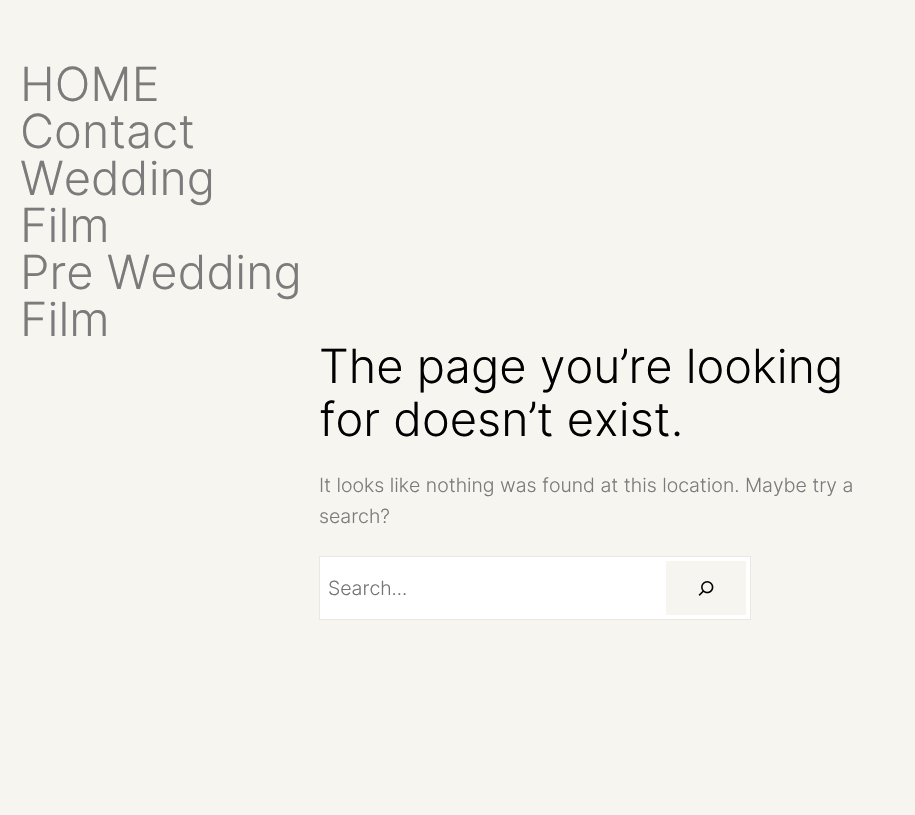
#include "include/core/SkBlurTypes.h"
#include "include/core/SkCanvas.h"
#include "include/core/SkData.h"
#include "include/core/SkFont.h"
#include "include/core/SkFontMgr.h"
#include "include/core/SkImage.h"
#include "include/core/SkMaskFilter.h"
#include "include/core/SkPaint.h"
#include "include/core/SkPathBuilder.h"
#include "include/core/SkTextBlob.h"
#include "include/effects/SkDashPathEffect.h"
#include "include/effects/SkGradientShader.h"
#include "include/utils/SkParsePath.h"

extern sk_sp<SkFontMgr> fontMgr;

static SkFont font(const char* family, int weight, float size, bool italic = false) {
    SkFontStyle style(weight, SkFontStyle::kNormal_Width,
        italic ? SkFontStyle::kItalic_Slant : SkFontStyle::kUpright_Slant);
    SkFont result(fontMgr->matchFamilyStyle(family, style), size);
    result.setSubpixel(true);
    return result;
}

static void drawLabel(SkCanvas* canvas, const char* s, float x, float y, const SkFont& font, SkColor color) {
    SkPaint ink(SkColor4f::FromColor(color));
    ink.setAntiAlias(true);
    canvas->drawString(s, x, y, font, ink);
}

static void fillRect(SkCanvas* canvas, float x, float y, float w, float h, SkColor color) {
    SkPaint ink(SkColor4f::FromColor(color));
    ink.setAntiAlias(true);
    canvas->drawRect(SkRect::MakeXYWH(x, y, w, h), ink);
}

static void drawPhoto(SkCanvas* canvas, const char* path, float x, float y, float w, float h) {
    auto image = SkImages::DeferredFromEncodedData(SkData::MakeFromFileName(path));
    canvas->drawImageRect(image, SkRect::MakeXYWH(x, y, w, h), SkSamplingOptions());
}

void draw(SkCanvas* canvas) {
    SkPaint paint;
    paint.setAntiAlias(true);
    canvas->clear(0xFFF6F5F0);
    SkFont font1 = font("Inter", 300, 47);
    drawLabel(canvas, "HOME", 20, 101, font1, 0xFF7B7B7B);
    drawLabel(canvas, "Contact", 20, 148, font1, 0xFF7B7B7B);
    drawLabel(canvas, "Wedding", 20, 195, font1, 0xFF7B7B7B);
    drawLabel(canvas, "Film", 20, 242, font1, 0xFF7B7B7B);
    drawLabel(canvas, "Pre Wedding", 20, 289, font1, 0xFF7B7B7B);
    drawLabel(canvas, "Film", 20, 336, font1, 0xFF7B7B7B);
    drawLabel(canvas, "The page you’re looking", 319, 383, font1, 0xFF000000);
    drawLabel(canvas, "for doesn’t exist.", 319, 436, font1, 0xFF000000);
    SkFont font2 = font("Inter", 300, 19.5f);
    drawLabel(canvas, "It looks like nothing was found at this location. Maybe try a", 319, 492, font2, 0xFF7B7B7B);
    drawLabel(canvas, "search?", 319, 523, font2, 0xFF7B7B7B);
    paint.setColor(0xFFFFFFFF);
    canvas->drawRect(SkRect::MakeXYWH(319.5f, 556.5f, 431, 63), paint);
    paint.setStroke(true);
    paint.setStrokeWidth(1);
    paint.setColor(0xFFEAE8E2);
    canvas->drawRect(SkRect::MakeXYWH(319.5f, 556.5f, 431, 63), paint);
    drawLabel(canvas, "Search...", 328, 595, font2, 0xFF757575);
    fillRect(canvas, 666, 561, 80, 54, 0xFFF6F5F0);
    drawPhoto(canvas, "assets/img1.png", 698, 581, 16, 15);
}
